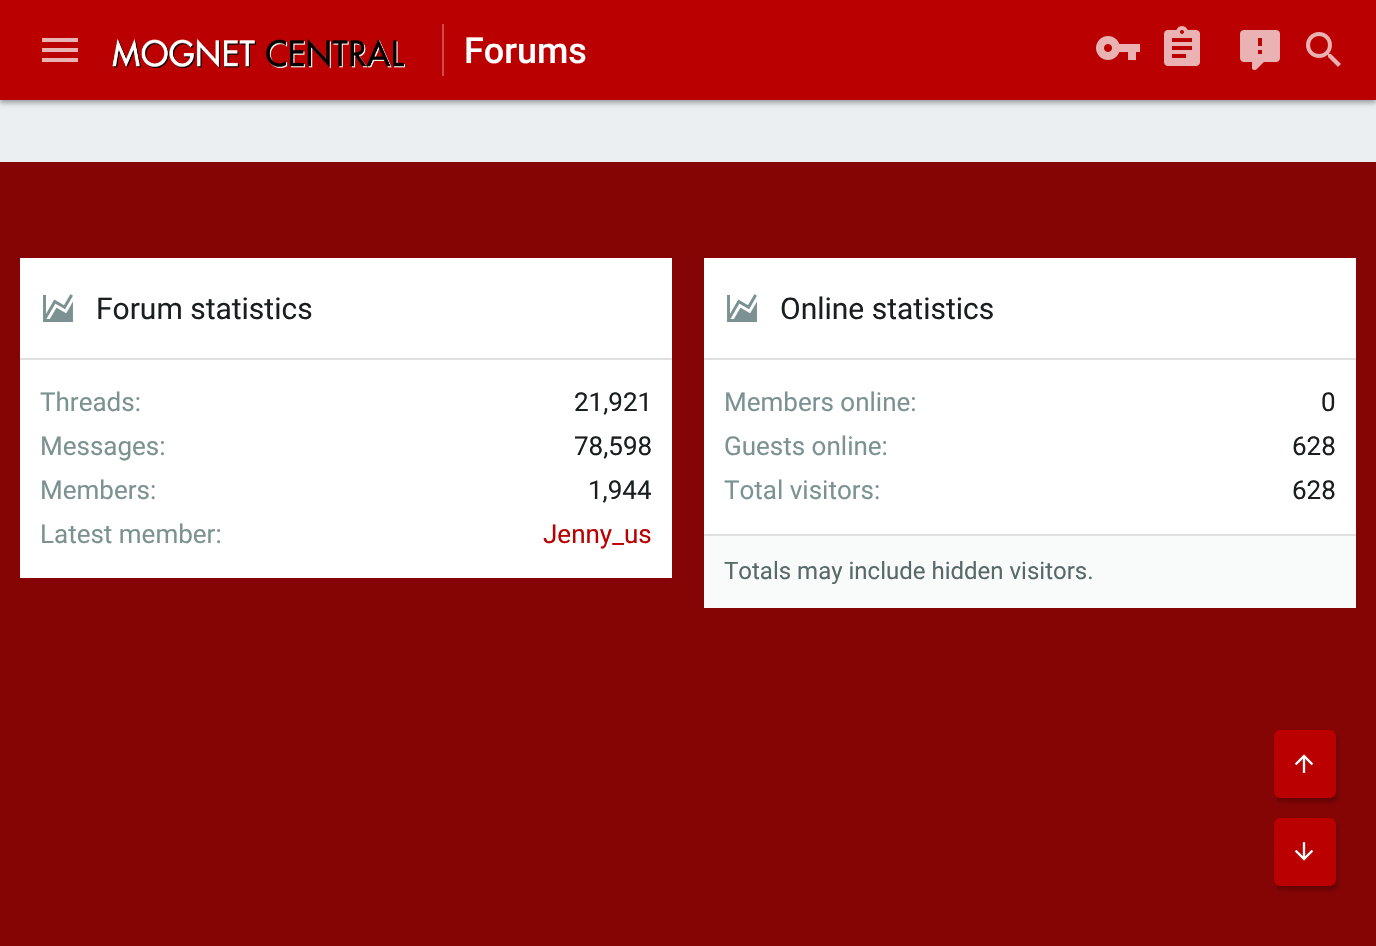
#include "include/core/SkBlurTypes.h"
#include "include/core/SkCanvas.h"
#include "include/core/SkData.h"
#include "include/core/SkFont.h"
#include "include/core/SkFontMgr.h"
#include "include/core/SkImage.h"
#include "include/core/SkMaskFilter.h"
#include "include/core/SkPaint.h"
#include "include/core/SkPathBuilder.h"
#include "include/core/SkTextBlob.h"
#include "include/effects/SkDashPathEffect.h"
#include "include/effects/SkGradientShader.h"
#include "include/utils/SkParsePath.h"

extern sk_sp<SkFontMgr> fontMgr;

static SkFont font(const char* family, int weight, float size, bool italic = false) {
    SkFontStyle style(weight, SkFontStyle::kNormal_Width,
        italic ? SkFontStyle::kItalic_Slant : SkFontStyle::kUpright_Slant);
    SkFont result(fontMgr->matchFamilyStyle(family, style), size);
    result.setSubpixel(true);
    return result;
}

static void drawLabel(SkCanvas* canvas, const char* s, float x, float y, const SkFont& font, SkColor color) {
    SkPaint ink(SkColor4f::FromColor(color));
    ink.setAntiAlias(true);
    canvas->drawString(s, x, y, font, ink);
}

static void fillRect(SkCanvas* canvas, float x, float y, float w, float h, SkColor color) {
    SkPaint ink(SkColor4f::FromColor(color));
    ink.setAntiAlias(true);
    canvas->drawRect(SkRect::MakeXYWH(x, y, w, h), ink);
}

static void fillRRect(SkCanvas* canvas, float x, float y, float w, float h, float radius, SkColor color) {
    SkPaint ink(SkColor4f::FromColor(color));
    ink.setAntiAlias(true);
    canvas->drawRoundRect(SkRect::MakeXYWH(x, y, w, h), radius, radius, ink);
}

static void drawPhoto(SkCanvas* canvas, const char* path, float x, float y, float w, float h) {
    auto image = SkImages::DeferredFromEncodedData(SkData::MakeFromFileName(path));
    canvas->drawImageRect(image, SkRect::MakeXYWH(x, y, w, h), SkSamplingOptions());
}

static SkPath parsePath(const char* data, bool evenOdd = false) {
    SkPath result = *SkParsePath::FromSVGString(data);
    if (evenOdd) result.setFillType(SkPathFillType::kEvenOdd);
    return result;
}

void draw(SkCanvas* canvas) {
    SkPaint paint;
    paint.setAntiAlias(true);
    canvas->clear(0xFFECEFF1);
    paint.setColor(0x33000000);
    paint.setMaskFilter(SkMaskFilter::MakeBlur(kNormal_SkBlurStyle, 3));
    canvas->drawRect(SkRect::MakeXYWH(0, 2, 1376, 100), paint);
    paint.setMaskFilter(nullptr);
    paint.setColor(0x1F000000);
    paint.setMaskFilter(SkMaskFilter::MakeBlur(kNormal_SkBlurStyle, 2));
    canvas->drawRect(SkRect::MakeXYWH(0, 4, 1376, 100), paint);
    paint.setMaskFilter(nullptr);
    paint.setColor(0x24000000);
    paint.setMaskFilter(SkMaskFilter::MakeBlur(kNormal_SkBlurStyle, 2));
    canvas->drawRect(SkRect::MakeXYWH(0, 0, 1376, 100), paint);
    paint.setMaskFilter(nullptr);
    fillRect(canvas, 0, 0, 1376, 100, 0xFFBA0000);
    paint.setColor(0xFFEAB3B3);
    canvas->drawPath(parsePath("M42 38H78V42H42ZM42 48H78V52H42ZM42 58H78V62H42Z"), paint);
    drawPhoto(canvas, "assets/img1.png", 112, 39, 293, 30);
    fillRect(canvas, 442, 24, 2, 52, 0xFFCF4D4D);
    SkFont font1 = font("Roboto", 500, 36);
    drawLabel(canvas, "Forums", 464, 63, font1, 0xFFFFFFFF);
    drawPhoto(canvas, "assets/img2.png", 1096, 36, 45, 24);
    drawPhoto(canvas, "assets/img3.png", 1164, 26, 36, 40);
    drawPhoto(canvas, "assets/img4.png", 1240, 30, 40, 40);
    drawPhoto(canvas, "assets/img5.png", 1306, 32, 35, 35);
    fillRect(canvas, 0, 162, 1376, 784, 0xFF850505);
    fillRect(canvas, 20, 258, 652, 320, 0xFFFFFFFF);
    fillRect(canvas, 20, 358, 652, 2, 0xFFE0E0E0);
    drawPhoto(canvas, "assets/img6.png", 43, 294, 30, 28);
    SkFont font2 = font("Roboto", 400, 30);
    drawLabel(canvas, "Forum statistics", 96, 319, font2, 0xFF191E1E);
    SkFont font3 = font("Roboto", 400, 26);
    drawLabel(canvas, "Threads:", 40, 411, font3, 0xFF7C9292);
    drawLabel(canvas, "21,921", 574, 411, font3, 0xFF191E1E);
    drawLabel(canvas, "Messages:", 40, 455, font3, 0xFF7C9292);
    drawLabel(canvas, "78,598", 574, 455, font3, 0xFF191E1E);
    drawLabel(canvas, "Members:", 40, 499, font3, 0xFF7C9292);
    drawLabel(canvas, "1,944", 588, 499, font3, 0xFF191E1E);
    drawLabel(canvas, "Latest member:", 40, 543, font3, 0xFF7C9292);
    drawLabel(canvas, "Jenny_us", 543, 543, font3, 0xFFBA0000);
    fillRect(canvas, 704, 258, 652, 276, 0xFFFFFFFF);
    fillRect(canvas, 704, 358, 652, 2, 0xFFE0E0E0);
    drawPhoto(canvas, "assets/img6.png", 727, 294, 30, 28);
    drawLabel(canvas, "Online statistics", 780, 319, font2, 0xFF191E1E);
    drawLabel(canvas, "Members online:", 724, 411, font3, 0xFF7C9292);
    drawLabel(canvas, "0", 1321, 411, font3, 0xFF191E1E);
    drawLabel(canvas, "Guests online:", 724, 455, font3, 0xFF7C9292);
    drawLabel(canvas, "628", 1292, 455, font3, 0xFF191E1E);
    drawLabel(canvas, "Total visitors:", 724, 499, font3, 0xFF7C9292);
    drawLabel(canvas, "628", 1292, 499, font3, 0xFF191E1E);
    fillRect(canvas, 704, 536, 652, 72, 0xFFF9FAFA);
    fillRect(canvas, 704, 534, 652, 2, 0xFFE0E0E0);
    SkFont font4 = font("Roboto", 400, 24);
    drawLabel(canvas, "Totals may include hidden visitors.", 724, 579, font4, 0xFF586969);
    paint.setColor(0x40000000);
    paint.setMaskFilter(SkMaskFilter::MakeBlur(kNormal_SkBlurStyle, 2));
    canvas->drawRoundRect(SkRect::MakeXYWH(1276, 734, 62, 68), 6, 6, paint);
    paint.setMaskFilter(nullptr);
    fillRRect(canvas, 1274, 730, 62, 68, 6, 0xFFBA0000);
    drawPhoto(canvas, "assets/img7.png", 1294, 754, 20, 19);
    paint.setMaskFilter(SkMaskFilter::MakeBlur(kNormal_SkBlurStyle, 2));
    canvas->drawRoundRect(SkRect::MakeXYWH(1276, 822, 62, 68), 6, 6, paint);
    paint.setMaskFilter(nullptr);
    fillRRect(canvas, 1274, 818, 62, 68, 6, 0xFFBA0000);
    drawPhoto(canvas, "assets/img8.png", 1294, 842, 20, 19);
}
